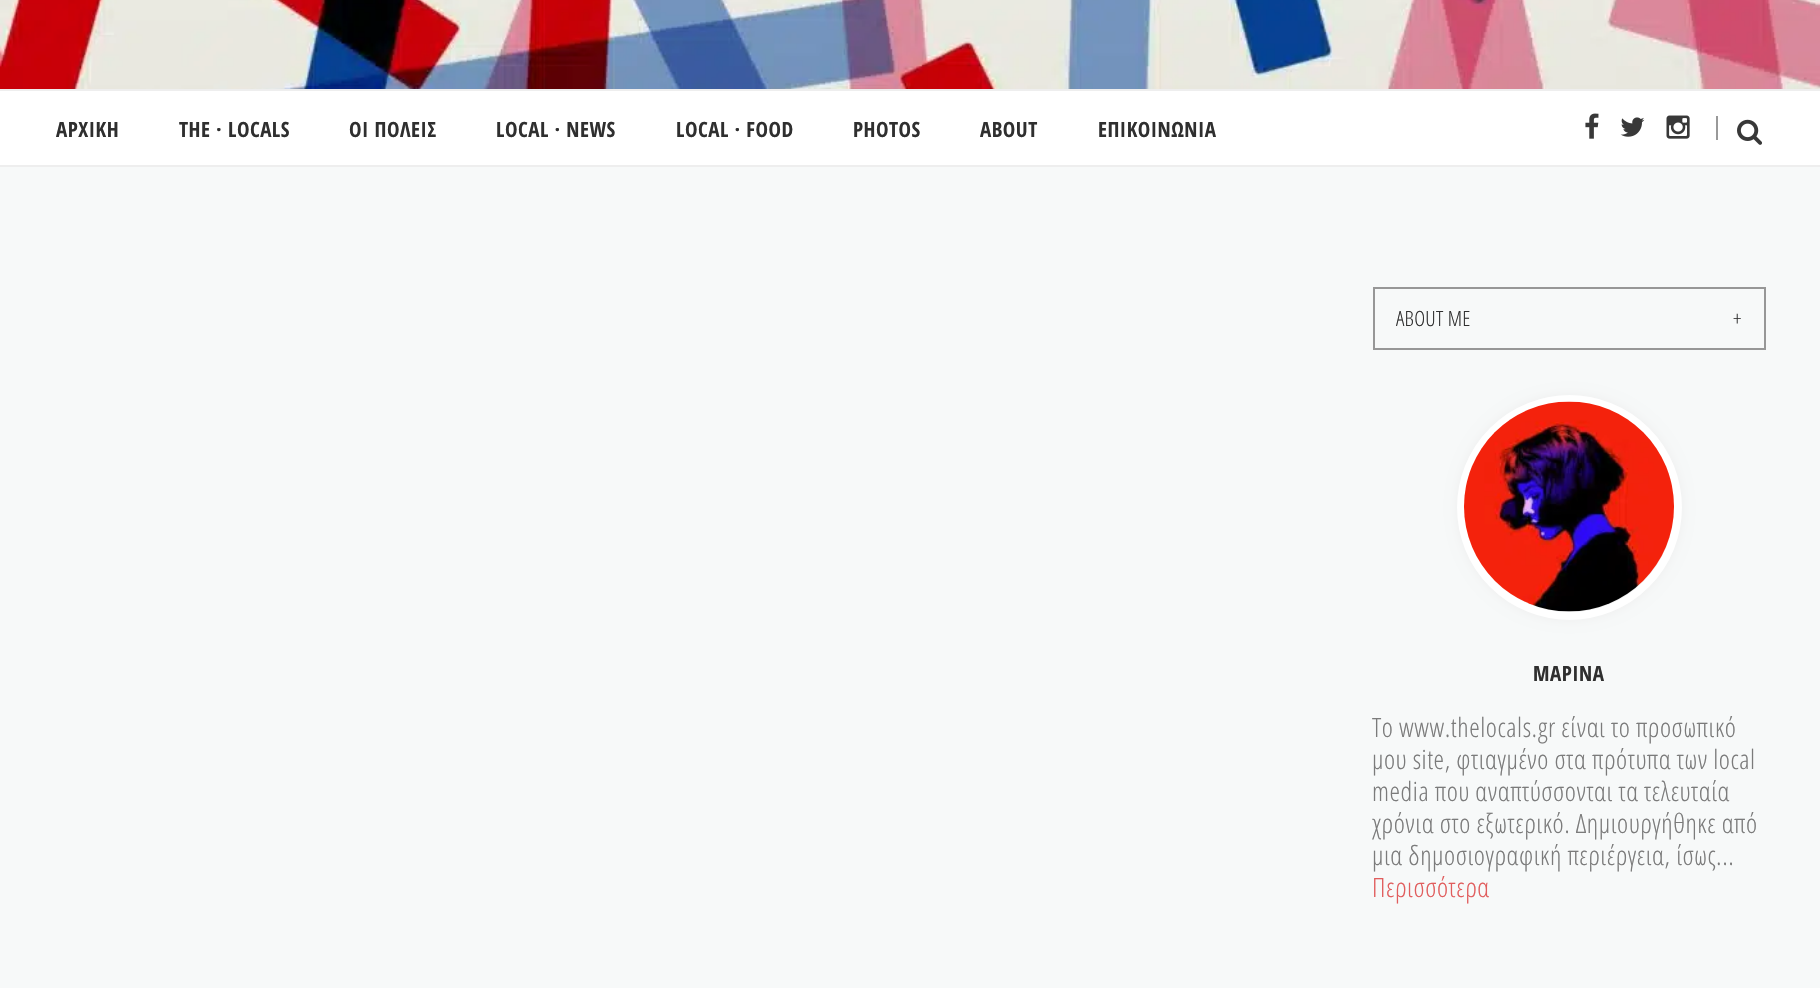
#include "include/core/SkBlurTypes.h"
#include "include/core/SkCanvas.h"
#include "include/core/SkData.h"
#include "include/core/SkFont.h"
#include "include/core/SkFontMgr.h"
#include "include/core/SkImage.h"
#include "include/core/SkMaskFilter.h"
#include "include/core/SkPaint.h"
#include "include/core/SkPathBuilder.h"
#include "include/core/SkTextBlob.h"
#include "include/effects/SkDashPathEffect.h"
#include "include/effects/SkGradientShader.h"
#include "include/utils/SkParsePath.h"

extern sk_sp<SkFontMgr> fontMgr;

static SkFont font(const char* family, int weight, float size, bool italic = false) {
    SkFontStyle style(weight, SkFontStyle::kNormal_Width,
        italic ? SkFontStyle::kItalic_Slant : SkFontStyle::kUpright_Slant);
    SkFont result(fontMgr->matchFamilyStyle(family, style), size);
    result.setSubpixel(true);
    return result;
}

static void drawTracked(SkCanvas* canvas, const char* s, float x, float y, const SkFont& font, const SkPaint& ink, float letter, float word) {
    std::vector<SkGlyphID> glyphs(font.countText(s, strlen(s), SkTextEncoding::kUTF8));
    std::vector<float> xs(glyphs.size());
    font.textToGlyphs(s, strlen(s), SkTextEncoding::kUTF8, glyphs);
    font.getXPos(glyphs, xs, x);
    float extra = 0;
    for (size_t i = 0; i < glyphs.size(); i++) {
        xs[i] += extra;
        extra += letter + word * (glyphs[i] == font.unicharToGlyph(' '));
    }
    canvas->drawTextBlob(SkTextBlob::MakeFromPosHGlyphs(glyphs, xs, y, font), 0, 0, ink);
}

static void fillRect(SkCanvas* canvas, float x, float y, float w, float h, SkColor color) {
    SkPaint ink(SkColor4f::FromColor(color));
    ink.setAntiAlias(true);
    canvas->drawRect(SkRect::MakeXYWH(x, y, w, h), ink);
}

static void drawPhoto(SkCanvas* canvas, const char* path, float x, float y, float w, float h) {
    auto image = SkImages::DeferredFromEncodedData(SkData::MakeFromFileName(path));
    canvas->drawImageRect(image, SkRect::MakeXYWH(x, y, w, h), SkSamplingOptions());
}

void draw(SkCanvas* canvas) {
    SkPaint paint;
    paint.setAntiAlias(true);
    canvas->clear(0xFFF7F9F9);
    drawPhoto(canvas, "assets/img1.png", 0, 0, 1820, 89);
    fillRect(canvas, 0, 91, 1820, 74, 0xFFFFFFFF);
    fillRect(canvas, 0, 89, 1820, 2, 0xFFEEEEEE);
    fillRect(canvas, 0, 165, 1820, 2, 0xFFEEEEEE);
    SkFont font1 = font("Open Sans Condensed", 700, 21);
    paint.setColor(0xFF2F2F2F);
    drawTracked(canvas, "ΑΡΧΙΚΗ", 56, 137, font1, paint, 0.5f, 0);
    drawTracked(canvas, "THE · LOCALS", 179, 137, font1, paint, 0.5f, 0);
    drawTracked(canvas, "ΟΙ ΠΟΛΕΙΣ", 349, 137, font1, paint, 0.5f, 0);
    drawTracked(canvas, "LOCAL · NEWS", 496, 137, font1, paint, 0.5f, 0);
    drawTracked(canvas, "LOCAL · FOOD", 676, 137, font1, paint, 0.5f, 0);
    drawTracked(canvas, "PHOTOS", 853, 137, font1, paint, 0.5f, 0);
    drawTracked(canvas, "ABOUT", 980, 137, font1, paint, 0.5f, 0);
    drawTracked(canvas, "ΕΠΙΚΟΙΝΩΝΙΑ", 1098, 137, font1, paint, 0.5f, 0);
    drawPhoto(canvas, "assets/img2.png", 1585, 113, 14, 26);
    drawPhoto(canvas, "assets/img3.png", 1620, 117, 25, 20);
    drawPhoto(canvas, "assets/img4.png", 1666, 115, 24, 24);
    fillRect(canvas, 1716, 116, 2, 24, 0xFF999999);
    drawPhoto(canvas, "assets/img5.png", 1737, 119, 25, 26);
    paint.setStroke(true);
    paint.setStrokeWidth(2);
    paint.setColor(0xFF979797);
    canvas->drawRect(SkRect::MakeXYWH(1374, 288, 391, 61), paint);
    SkFont font2 = font("Open Sans Condensed", 300, 21);
    paint.setStroke(false);
    paint.setColor(0xFF2F2F2F);
    drawTracked(canvas, "ABOUT ME", 1396, 326, font2, paint, 0.25f, 0);
    drawTracked(canvas, "+", 1733, 326, font2, paint, 0.25f, 0);
    paint.setColor(0xFFEEEEEE);
    paint.setMaskFilter(SkMaskFilter::MakeBlur(kNormal_SkBlurStyle, 6));
    canvas->drawRoundRect(SkRect::MakeXYWH(1457, 395, 225, 225), 112.5f, 112.5f, paint);
    paint.setMaskFilter(nullptr);
    paint.setStroke(true);
    paint.setStrokeWidth(8);
    paint.setColor(0xFFFFFFFF);
    canvas->drawCircle(1569.5f, 507.5f, 108.5f, paint);
    drawPhoto(canvas, "assets/img6.png", 1464, 401, 210, 211);
    paint.setStroke(false);
    paint.setColor(0xFF2F2F2F);
    drawTracked(canvas, "ΜΑΡΙΝΑ", 1533, 681, font1, paint, 0.5f, 0);
    SkFont font3 = font("Open Sans Condensed", 300, 26.75f);
    paint.setColor(0xFF7B7B7B);
    drawTracked(canvas, "Το www.thelocals.gr είναι το προσωπικό", 1372, 737, font3, paint, 0.55f, 0);
    drawTracked(canvas, "μου site, φτιαγμένο στα πρότυπα των local", 1372, 769, font3, paint, 0.55f, 0);
    drawTracked(canvas, "media που αναπτύσσονται τα τελευταία", 1372, 801, font3, paint, 0.55f, 0);
    drawTracked(canvas, "χρόνια στο εξωτερικό. Δημιουργήθηκε από", 1372, 833, font3, paint, 0.55f, 0);
    drawTracked(canvas, "μια δημοσιογραφική περιέργεια, ίσως...", 1372, 865, font3, paint, 0.55f, 0);
    paint.setColor(0xFFE15D5D);
    drawTracked(canvas, "Περισσότερα", 1372, 897, font3, paint, 0.55f, 0);
}
